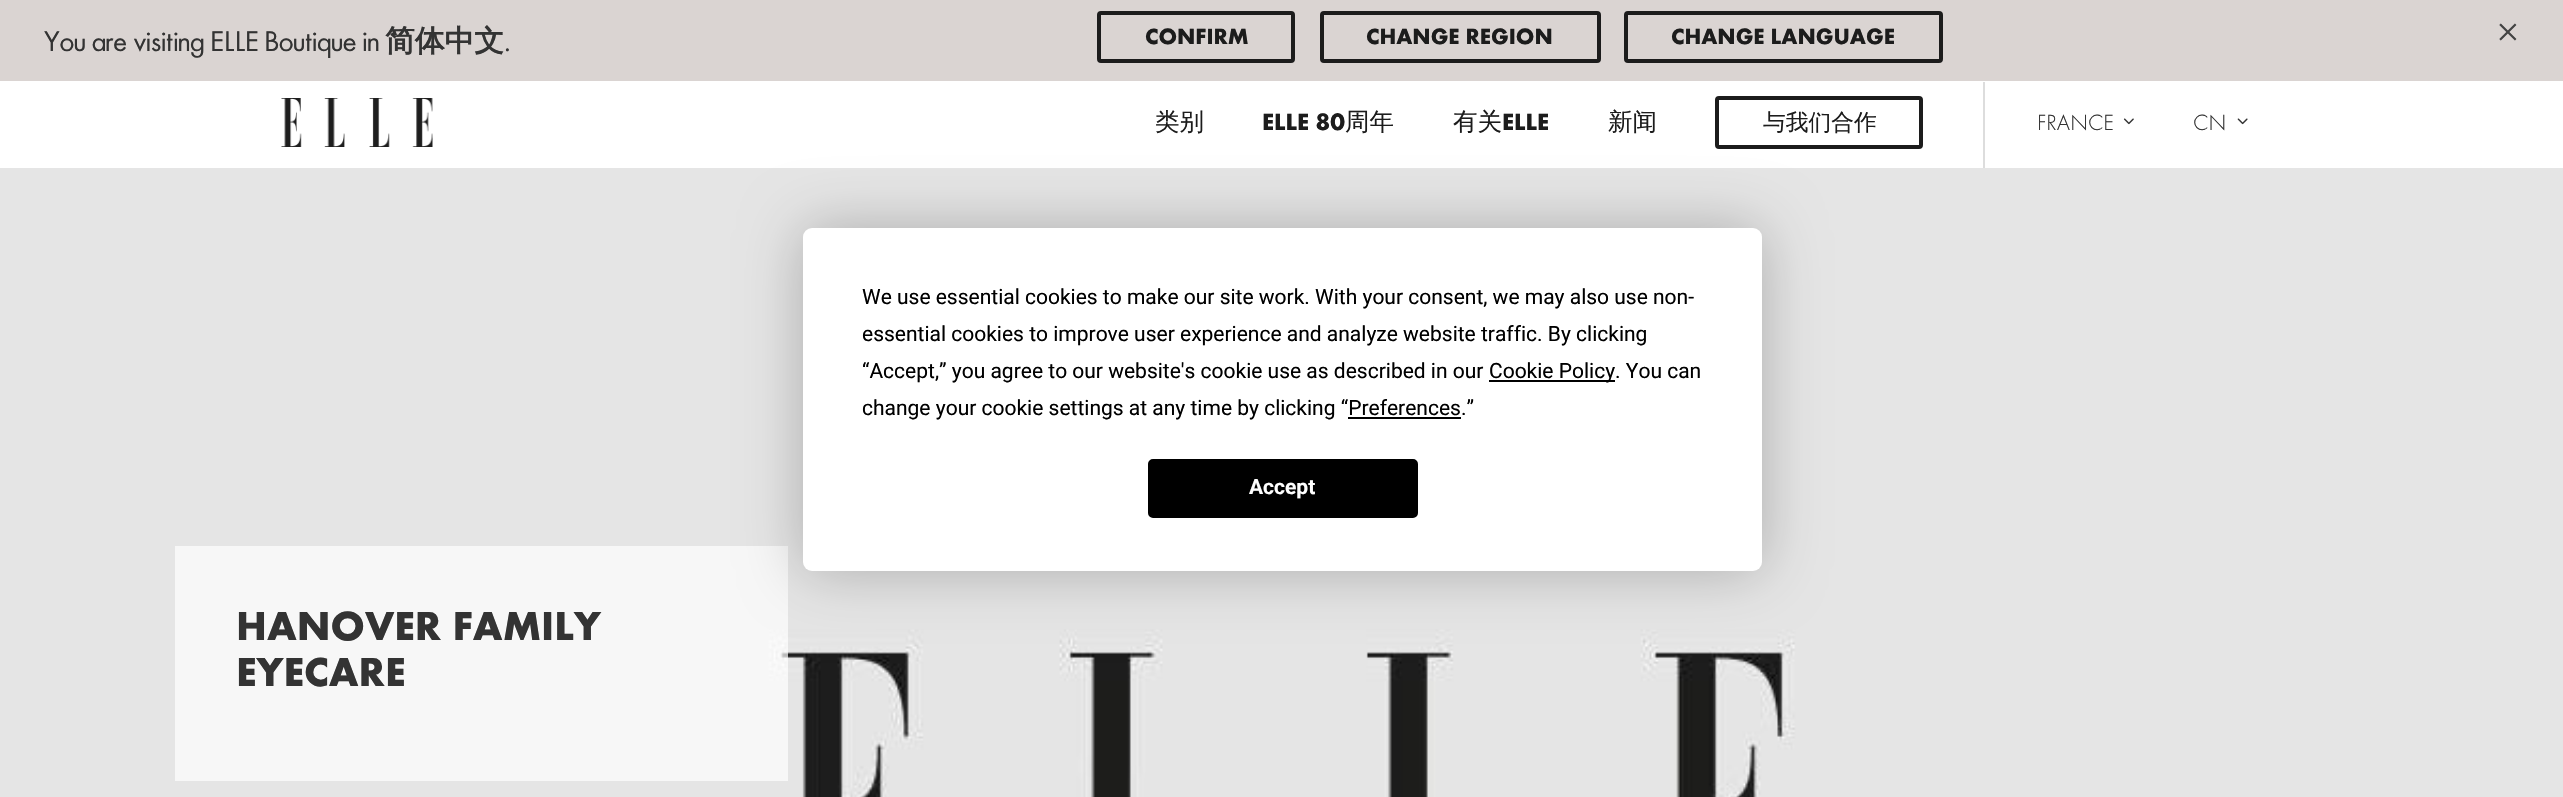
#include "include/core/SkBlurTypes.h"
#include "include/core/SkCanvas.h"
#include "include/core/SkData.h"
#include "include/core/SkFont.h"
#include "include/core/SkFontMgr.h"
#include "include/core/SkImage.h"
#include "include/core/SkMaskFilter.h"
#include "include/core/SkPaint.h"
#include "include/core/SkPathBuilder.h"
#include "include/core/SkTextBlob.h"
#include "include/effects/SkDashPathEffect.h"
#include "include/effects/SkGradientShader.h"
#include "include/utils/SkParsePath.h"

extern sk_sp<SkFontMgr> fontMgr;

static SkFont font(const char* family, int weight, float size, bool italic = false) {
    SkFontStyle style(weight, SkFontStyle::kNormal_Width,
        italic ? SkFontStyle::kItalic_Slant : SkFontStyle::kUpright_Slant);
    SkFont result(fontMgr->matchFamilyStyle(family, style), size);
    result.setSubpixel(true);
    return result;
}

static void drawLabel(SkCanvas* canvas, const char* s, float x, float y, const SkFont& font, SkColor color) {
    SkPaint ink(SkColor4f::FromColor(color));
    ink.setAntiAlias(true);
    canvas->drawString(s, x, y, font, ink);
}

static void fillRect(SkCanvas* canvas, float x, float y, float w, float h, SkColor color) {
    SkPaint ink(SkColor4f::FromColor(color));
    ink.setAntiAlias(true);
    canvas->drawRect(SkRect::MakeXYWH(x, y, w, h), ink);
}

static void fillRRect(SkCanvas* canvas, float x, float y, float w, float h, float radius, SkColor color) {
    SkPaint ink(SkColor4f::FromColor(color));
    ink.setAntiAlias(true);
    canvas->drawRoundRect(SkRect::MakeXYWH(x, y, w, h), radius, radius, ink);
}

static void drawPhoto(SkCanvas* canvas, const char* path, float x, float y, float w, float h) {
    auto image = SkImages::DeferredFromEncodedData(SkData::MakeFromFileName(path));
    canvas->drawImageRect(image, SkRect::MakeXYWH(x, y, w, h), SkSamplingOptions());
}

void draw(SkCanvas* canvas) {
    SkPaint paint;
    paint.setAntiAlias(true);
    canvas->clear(0xFFFFFFFF);
    fillRect(canvas, 0, 0, 2563, 81, 0xFFDAD4D2);
    SkFont font1 = font("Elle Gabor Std", 400, 29.75f);
    drawLabel(canvas, "You are visiting ELLE Boutique in", 44, 51, font1, 0xFF333333);
    SkFont font2 = font("WenQuanYi Zen Hei", 700, 29.75f);
    drawLabel(canvas, "简体中文", 385, 51, font2, 0xFF333333);
    drawLabel(canvas, ".", 504, 51, font1, 0xFF333333);
    paint.setStroke(true);
    paint.setStrokeWidth(4);
    paint.setColor(0xFF1C1C1C);
    canvas->drawRoundRect(SkRect::MakeXYWH(1099, 13, 194, 48), 2, 2, paint);
    SkFont font3 = font("Elle Gabor Std", 700, 22.75f);
    drawLabel(canvas, "CONFIRM", 1145, 44, font3, 0xFF1C1C1C);
    canvas->drawRoundRect(SkRect::MakeXYWH(1322, 13, 277, 48), 2, 2, paint);
    drawLabel(canvas, "CHANGE REGION", 1366, 44, font3, 0xFF1C1C1C);
    canvas->drawRoundRect(SkRect::MakeXYWH(1626, 13, 315, 48), 2, 2, paint);
    drawLabel(canvas, "CHANGE LANGUAGE", 1671, 44, font3, 0xFF1C1C1C);
    SkFont font4 = font("Liberation Serif", 400, 42);
    drawLabel(canvas, "×", 2496, 46, font4, 0xFF444444);
    drawPhoto(canvas, "assets/img1.png", 281, 98, 152, 49);
    SkFont font5 = font("WenQuanYi Zen Hei", 500, 24.5f);
    drawLabel(canvas, "类别", 1155, 130, font5, 0xFF1C1C1C);
    SkFont font6 = font("Elle Gabor Std", 700, 24.5f);
    drawLabel(canvas, "ELLE 80", 1262, 130, font6, 0xFF1C1C1C);
    drawLabel(canvas, "周年", 1345, 130, font5, 0xFF1C1C1C);
    drawLabel(canvas, "有关", 1453, 130, font5, 0xFF1C1C1C);
    drawLabel(canvas, "ELLE", 1502, 130, font6, 0xFF1C1C1C);
    drawLabel(canvas, "新闻", 1608, 130, font5, 0xFF1C1C1C);
    canvas->drawRoundRect(SkRect::MakeXYWH(1717, 98, 204, 49), 2, 2, paint);
    SkFont font7 = font("WenQuanYi Zen Hei", 500, 22.75f);
    drawLabel(canvas, "与我们合作", 1763, 130, font7, 0xFF1C1C1C);
    fillRect(canvas, 1983, 82, 2, 86, 0xFFDDDDDD);
    SkFont font8 = font("Elle Gabor Std", 300, 22.75f);
    drawLabel(canvas, "FRANCE", 2037, 130, font8, 0xFF333333);
    drawPhoto(canvas, "assets/img2.png", 2123, 118, 11, 7);
    drawLabel(canvas, "CN", 2193, 130, font8, 0xFF333333);
    drawPhoto(canvas, "assets/img3.png", 2237, 118, 11, 7);
    drawPhoto(canvas, "assets/img4.png", 0, 168, 2563, 629);
    fillRect(canvas, 175, 546, 613, 235, 0xB3FFFFFF);
    SkFont font9 = font("Elle Gabor Std", 700, 42);
    drawLabel(canvas, "HANOVER FAMILY", 236, 640, font9, 0xFF333333);
    drawLabel(canvas, "EYECARE", 236, 686, font9, 0xFF333333);
    paint.setStroke(false);
    paint.setColor(0x40000000);
    paint.setMaskFilter(SkMaskFilter::MakeBlur(kNormal_SkBlurStyle, 30.5f));
    canvas->drawRoundRect(SkRect::MakeXYWH(803, 228, 959, 343), 9, 9, paint);
    paint.setMaskFilter(nullptr);
    fillRRect(canvas, 803, 228, 959, 343, 9, 0xFFFFFFFF);
    SkFont font10 = font("Roboto", 400, 21);
    drawLabel(canvas, "We use essential cookies to make our site work. With your consent, we may also use non-", 862, 304, font10, 0xFF000000);
    drawLabel(canvas, "essential cookies to improve user experience and analyze website traffic. By clicking", 862, 341, font10, 0xFF000000);
    drawLabel(canvas, "“Accept,” you agree to our website's cookie use as described in our", 862, 378, font10, 0xFF000000);
    fillRect(canvas, 1489, 380, 126, 2, 0xFF000000);
    drawLabel(canvas, "Cookie Policy. You can", 1489, 378, font10, 0xFF000000);
    drawLabel(canvas, "change your cookie settings at any time by clicking “Preferences.”", 862, 415, font10, 0xFF000000);
    fillRect(canvas, 1348, 417, 113, 2, 0xFF000000);
    paint.setColor(0xFF000000);
    canvas->drawRoundRect(SkRect::MakeXYWH(1149, 460, 268, 57), 4, 4, paint);
    paint.setStroke(true);
    paint.setStrokeWidth(2);
    canvas->drawRoundRect(SkRect::MakeXYWH(1149, 460, 268, 57), 4, 4, paint);
    SkFont font11 = font("Roboto", 700, 21);
    drawLabel(canvas, "Accept", 1249, 494, font11, 0xFFFFFFFF);
}
